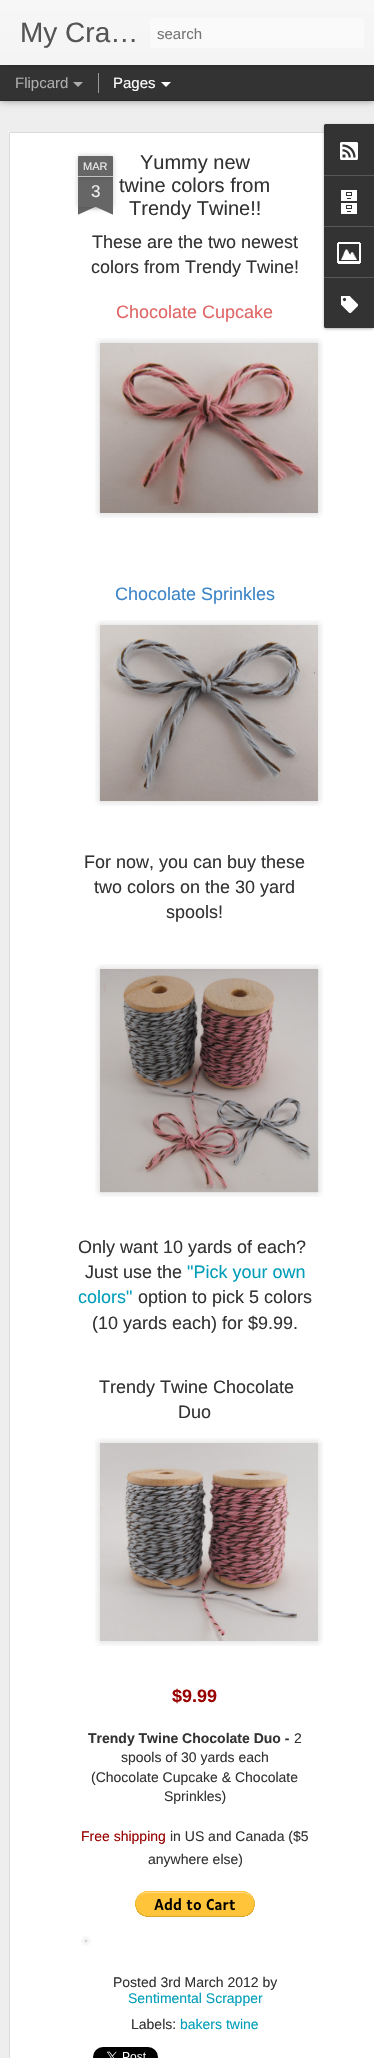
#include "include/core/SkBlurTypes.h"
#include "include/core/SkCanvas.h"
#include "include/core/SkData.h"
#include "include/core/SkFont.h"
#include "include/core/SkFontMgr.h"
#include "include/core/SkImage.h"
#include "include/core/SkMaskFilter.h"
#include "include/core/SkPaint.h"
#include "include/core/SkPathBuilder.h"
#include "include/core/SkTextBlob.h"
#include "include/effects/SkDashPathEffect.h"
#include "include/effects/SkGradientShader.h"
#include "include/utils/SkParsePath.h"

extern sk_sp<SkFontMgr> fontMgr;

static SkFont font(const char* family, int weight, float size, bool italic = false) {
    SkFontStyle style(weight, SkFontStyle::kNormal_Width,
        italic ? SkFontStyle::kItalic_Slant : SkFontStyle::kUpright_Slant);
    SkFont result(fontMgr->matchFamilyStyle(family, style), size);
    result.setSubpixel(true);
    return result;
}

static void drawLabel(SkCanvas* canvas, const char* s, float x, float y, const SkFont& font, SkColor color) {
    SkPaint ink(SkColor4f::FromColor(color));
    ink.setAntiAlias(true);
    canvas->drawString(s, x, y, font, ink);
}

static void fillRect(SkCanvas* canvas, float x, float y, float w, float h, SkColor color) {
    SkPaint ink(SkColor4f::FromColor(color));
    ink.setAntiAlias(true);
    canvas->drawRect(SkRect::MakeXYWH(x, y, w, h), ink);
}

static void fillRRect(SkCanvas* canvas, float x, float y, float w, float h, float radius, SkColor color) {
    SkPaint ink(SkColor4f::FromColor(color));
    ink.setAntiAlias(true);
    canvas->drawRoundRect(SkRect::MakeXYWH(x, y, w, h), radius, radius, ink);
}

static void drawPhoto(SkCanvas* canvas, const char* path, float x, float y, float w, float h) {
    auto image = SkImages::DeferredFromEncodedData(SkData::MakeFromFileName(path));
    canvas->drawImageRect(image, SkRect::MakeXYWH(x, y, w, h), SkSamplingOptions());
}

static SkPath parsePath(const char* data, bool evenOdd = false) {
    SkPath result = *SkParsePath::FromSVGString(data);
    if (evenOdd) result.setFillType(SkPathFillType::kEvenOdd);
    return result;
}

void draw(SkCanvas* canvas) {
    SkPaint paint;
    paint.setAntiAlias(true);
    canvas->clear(0xFF333333);
    fillRect(canvas, 0, 101, 374, 1957, 0xFFEEEEEE);
    paint.setColor(0x80000000);
    paint.setMaskFilter(SkMaskFilter::MakeBlur(kNormal_SkBlurStyle, 4));
    canvas->drawRect(SkRect::MakeXYWH(0, 65, 374, 35), paint);
    paint.setMaskFilter(nullptr);
    fillRect(canvas, 0, 65, 374, 35, 0xFF333333);
    fillRect(canvas, 98, 73, 1, 20, 0xFF999999);
    paint.setColor(0x4D000000);
    paint.setMaskFilter(SkMaskFilter::MakeBlur(kNormal_SkBlurStyle, 2.5f));
    canvas->drawRect(SkRect::MakeXYWH(0, 0, 374, 65), paint);
    paint.setMaskFilter(nullptr);
    {
        const SkColor colors[] = {0xFFF7F7F7, 0xFFF4F4F4};
        const float stops[] = {0, 1};
        const SkPoint ends[] = {{0, 0}, {0, 65}};
        paint.setShader(SkGradientShader::MakeLinear(ends, colors, stops, 2, SkTileMode::kClamp));
        paint.setAlpha(255);
    }
    canvas->drawRect(SkRect::MakeXYWH(0, 0, 374, 65), paint);
    SkFont font1 = font("Liberation Sans", 400, 28);
    drawLabel(canvas, "My Cra…", 20, 42, font1, 0xFF555555);
    fillRRect(canvas, 150, 18, 214, 30, 3, 0xFFFAFAFA);
    SkFont font2 = font("Liberation Sans", 400, 15);
    drawLabel(canvas, "search", 157, 39, font2, 0xFF757575);
    drawLabel(canvas, "Flipcard", 15, 88, font2, 0xFFADADAD);
    paint.setShader(nullptr);
    paint.setColor(0xFFADADAD);
    canvas->drawPath(parsePath("M73 82H83L78 87Z"), paint);
    drawLabel(canvas, "Pages", 113, 88, font2, 0xFFFFFFFF);
    paint.setColor(0xFFFFFFFF);
    canvas->drawPath(parsePath("M161 82H171L166 87Z"), paint);
    fillRect(canvas, 8, 131, 366, 1927, 0xFFFFFFFF);
    drawPhoto(canvas, "assets/img1.png", 8, 131, 316, 1927);
    paint.setColor(0x33000000);
    paint.setMaskFilter(SkMaskFilter::MakeBlur(kNormal_SkBlurStyle, 2.5f));
    canvas->drawRect(SkRect::MakeXYWH(78, 177, 35, 30), paint);
    paint.setMaskFilter(nullptr);
    fillRect(canvas, 78, 177, 35, 30, 0xFF666666);
    paint.setMaskFilter(SkMaskFilter::MakeBlur(kNormal_SkBlurStyle, 2.5f));
    canvas->drawRoundRect(SkRect::MakeXYWH(78, 156, 35, 21), 1, 1, paint);
    paint.setMaskFilter(nullptr);
    paint.setColor(0xFF666666);
    canvas->drawPath(parsePath("M79 156H112C112.5 156 113 156.5 113 157V177H78V157C78 156.5 78.5 156 79 156Z"), paint);
    fillRect(canvas, 78, 176, 35, 1, 0xFFC2C2C2);
    SkFont font3 = font("Liberation Sans", 400, 11);
    drawLabel(canvas, "MAR", 83, 170, font3, 0xFFEEEEEE);
    SkFont font4 = font("Liberation Sans", 400, 17);
    drawLabel(canvas, "3", 91, 197, font4, 0xFFEEEEEE);
    canvas->save();
    canvas->clipRect(SkRect::MakeXYWH(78, 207, 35, 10));
    paint.setColor(0x33000000);
    paint.setMaskFilter(SkMaskFilter::MakeBlur(kNormal_SkBlurStyle, 2.5f));
    canvas->drawRect(SkRect::MakeXYWH(69, 197, 50, 10), paint);
    paint.setMaskFilter(nullptr);
    canvas->restore();
    canvas->save();
    canvas->clipRect(SkRect::MakeXYWH(78, 207, 35, 10));
    paint.setColor(0xFF666666);
    canvas->drawPath(parsePath("M69 208L115 187L119 196L73 217Z"), paint);
    canvas->restore();
    canvas->save();
    canvas->clipRect(SkRect::MakeXYWH(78, 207, 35, 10));
    paint.setColor(0x33000000);
    paint.setMaskFilter(SkMaskFilter::MakeBlur(kNormal_SkBlurStyle, 2.5f));
    canvas->drawRect(SkRect::MakeXYWH(72, 197, 50, 10), paint);
    paint.setMaskFilter(nullptr);
    canvas->restore();
    canvas->save();
    canvas->clipRect(SkRect::MakeXYWH(78, 207, 35, 10));
    paint.setColor(0xFF666666);
    canvas->drawPath(parsePath("M76 187L122 208L118 217L72 196Z"), paint);
    canvas->restore();
    SkFont font5 = font("Liberation Sans", 400, 20);
    drawLabel(canvas, "Yummy new", 140, 169, font5, 0xFF333333);
    drawLabel(canvas, "twine colors from", 119, 192, font5, 0xFF333333);
    drawLabel(canvas, "Trendy Twine!!", 129, 215, font5, 0xFF333333);
    SkFont font6 = font("Liberation Sans", 400, 18);
    drawLabel(canvas, "These are the two newest", 92, 248, font6, 0xFF333333);
    drawLabel(canvas, "colors from Trendy Twine!", 91, 273, font6, 0xFF333333);
    drawLabel(canvas, "Chocolate Cupcake", 116, 318, font6, 0xFFE06666);
    drawPhoto(canvas, "assets/img2.png", 95, 338, 228, 180);
    drawPhoto(canvas, "assets/img3.png", 99, 363, 204, 150);
    drawLabel(canvas, "Chocolate Sprinkles", 115, 600, font6, 0xFF3D85C6);
    drawPhoto(canvas, "assets/img4.png", 95, 620, 228, 186);
    drawPhoto(canvas, "assets/img5.png", 99, 640, 216, 161);
    drawLabel(canvas, "For now, you can buy these", 84, 868, font6, 0xFF333333);
    drawLabel(canvas, "two colors on the 30 yard", 94, 893, font6, 0xFF333333);
    drawLabel(canvas, "spools!", 166, 918, font6, 0xFF333333);
    drawPhoto(canvas, "assets/img6.png", 95, 964, 228, 233);
    drawPhoto(canvas, "assets/img7.png", 100, 969, 219, 224);
    drawLabel(canvas, "Only want 10 yards of each?", 78, 1253, font6, 0xFF333333);
    drawLabel(canvas, "Just use the", 85, 1278, font6, 0xFF333333);
    drawLabel(canvas, "\"Pick your own", 187, 1278, font6, 0xFF009EB8);
    drawLabel(canvas, "colors\"", 78, 1303, font6, 0xFF009EB8);
    drawLabel(canvas, "option to pick 5 colors", 138, 1303, font6, 0xFF333333);
    drawLabel(canvas, "(10 yards each) for $9.99.", 92, 1329, font6, 0xFF333333);
    drawLabel(canvas, "Trendy Twine Chocolate", 99, 1393, font6, 0xFF333333);
    drawLabel(canvas, "Duo", 178, 1418, font6, 0xFF333333);
    drawPhoto(canvas, "assets/img8.png", 95, 1438, 228, 208);
    drawPhoto(canvas, "assets/img9.png", 126, 1470, 171, 166);
    SkFont font7 = font("Liberation Sans", 700, 18);
    drawLabel(canvas, "$9.99", 172, 1702, font7, 0xFF990000);
    SkFont font8 = font("Liberation Sans", 700, 14);
    drawLabel(canvas, "Trendy Twine Chocolate Duo -", 88, 1743, font8, 0xFF333333);
    SkFont font9 = font("Liberation Sans", 400, 14);
    drawLabel(canvas, "2", 294, 1743, font9, 0xFF333333);
    drawLabel(canvas, "spools of 30 yards each", 121, 1762, font9, 0xFF333333);
    drawLabel(canvas, "(Chocolate Cupcake & Chocolate", 91, 1782, font9, 0xFF333333);
    drawLabel(canvas, "Sprinkles)", 164, 1801, font9, 0xFF333333);
    drawLabel(canvas, "Free shipping", 81, 1841, font9, 0xFF990000);
    drawLabel(canvas, "in US and Canada ($5", 170, 1841, font9, 0xFF333333);
    drawLabel(canvas, "anywhere else)", 148, 1864, font9, 0xFF333333);
    drawPhoto(canvas, "assets/img10.png", 135, 1891, 120, 26);
    drawPhoto(canvas, "assets/img11.png", 81, 1936, 10, 10);
    drawLabel(canvas, "Posted 3rd March 2012 by", 113, 1987, font9, 0xFF333333);
    drawLabel(canvas, "Sentimental Scrapper", 128, 2003, font9, 0xFF009EB8);
    drawLabel(canvas, "Labels:", 131, 2029, font9, 0xFF333333);
    drawLabel(canvas, "bakers twine", 180, 2029, font9, 0xFF009EB8);
    drawPhoto(canvas, "assets/img12.png", 93, 2047, 65, 11);
    paint.setColor(0x4D000000);
    paint.setMaskFilter(SkMaskFilter::MakeBlur(kNormal_SkBlurStyle, 1.5f));
    canvas->drawRoundRect(SkRect::MakeXYWH(324, 125, 50, 204), 2, 2, paint);
    paint.setMaskFilter(nullptr);
    paint.setColor(0xFF333333);
    canvas->drawPath(parsePath("M326 124H374V328H326C325 328 324 327 324 326V126C324 125 325 124 326 124Z"), paint);
    canvas->drawPath(parsePath("M326 124H374V175H324V126C324 125 325 124 326 124Z"), paint);
    drawPhoto(canvas, "assets/img13.png", 340, 142, 18, 18);
    fillRect(canvas, 324, 175, 50, 1, 0xFF585858);
    drawPhoto(canvas, "assets/img14.png", 341, 190, 16, 24);
    fillRect(canvas, 324, 226, 50, 1, 0xFF585858);
    drawPhoto(canvas, "assets/img15.png", 337, 242, 24, 22);
    canvas->drawPath(parsePath("M324 277H374V328H326C325 328 324 327 324 326Z"), paint);
    fillRect(canvas, 324, 277, 50, 1, 0xFF585858);
    drawPhoto(canvas, "assets/img16.png", 341, 296, 17, 17);
}
